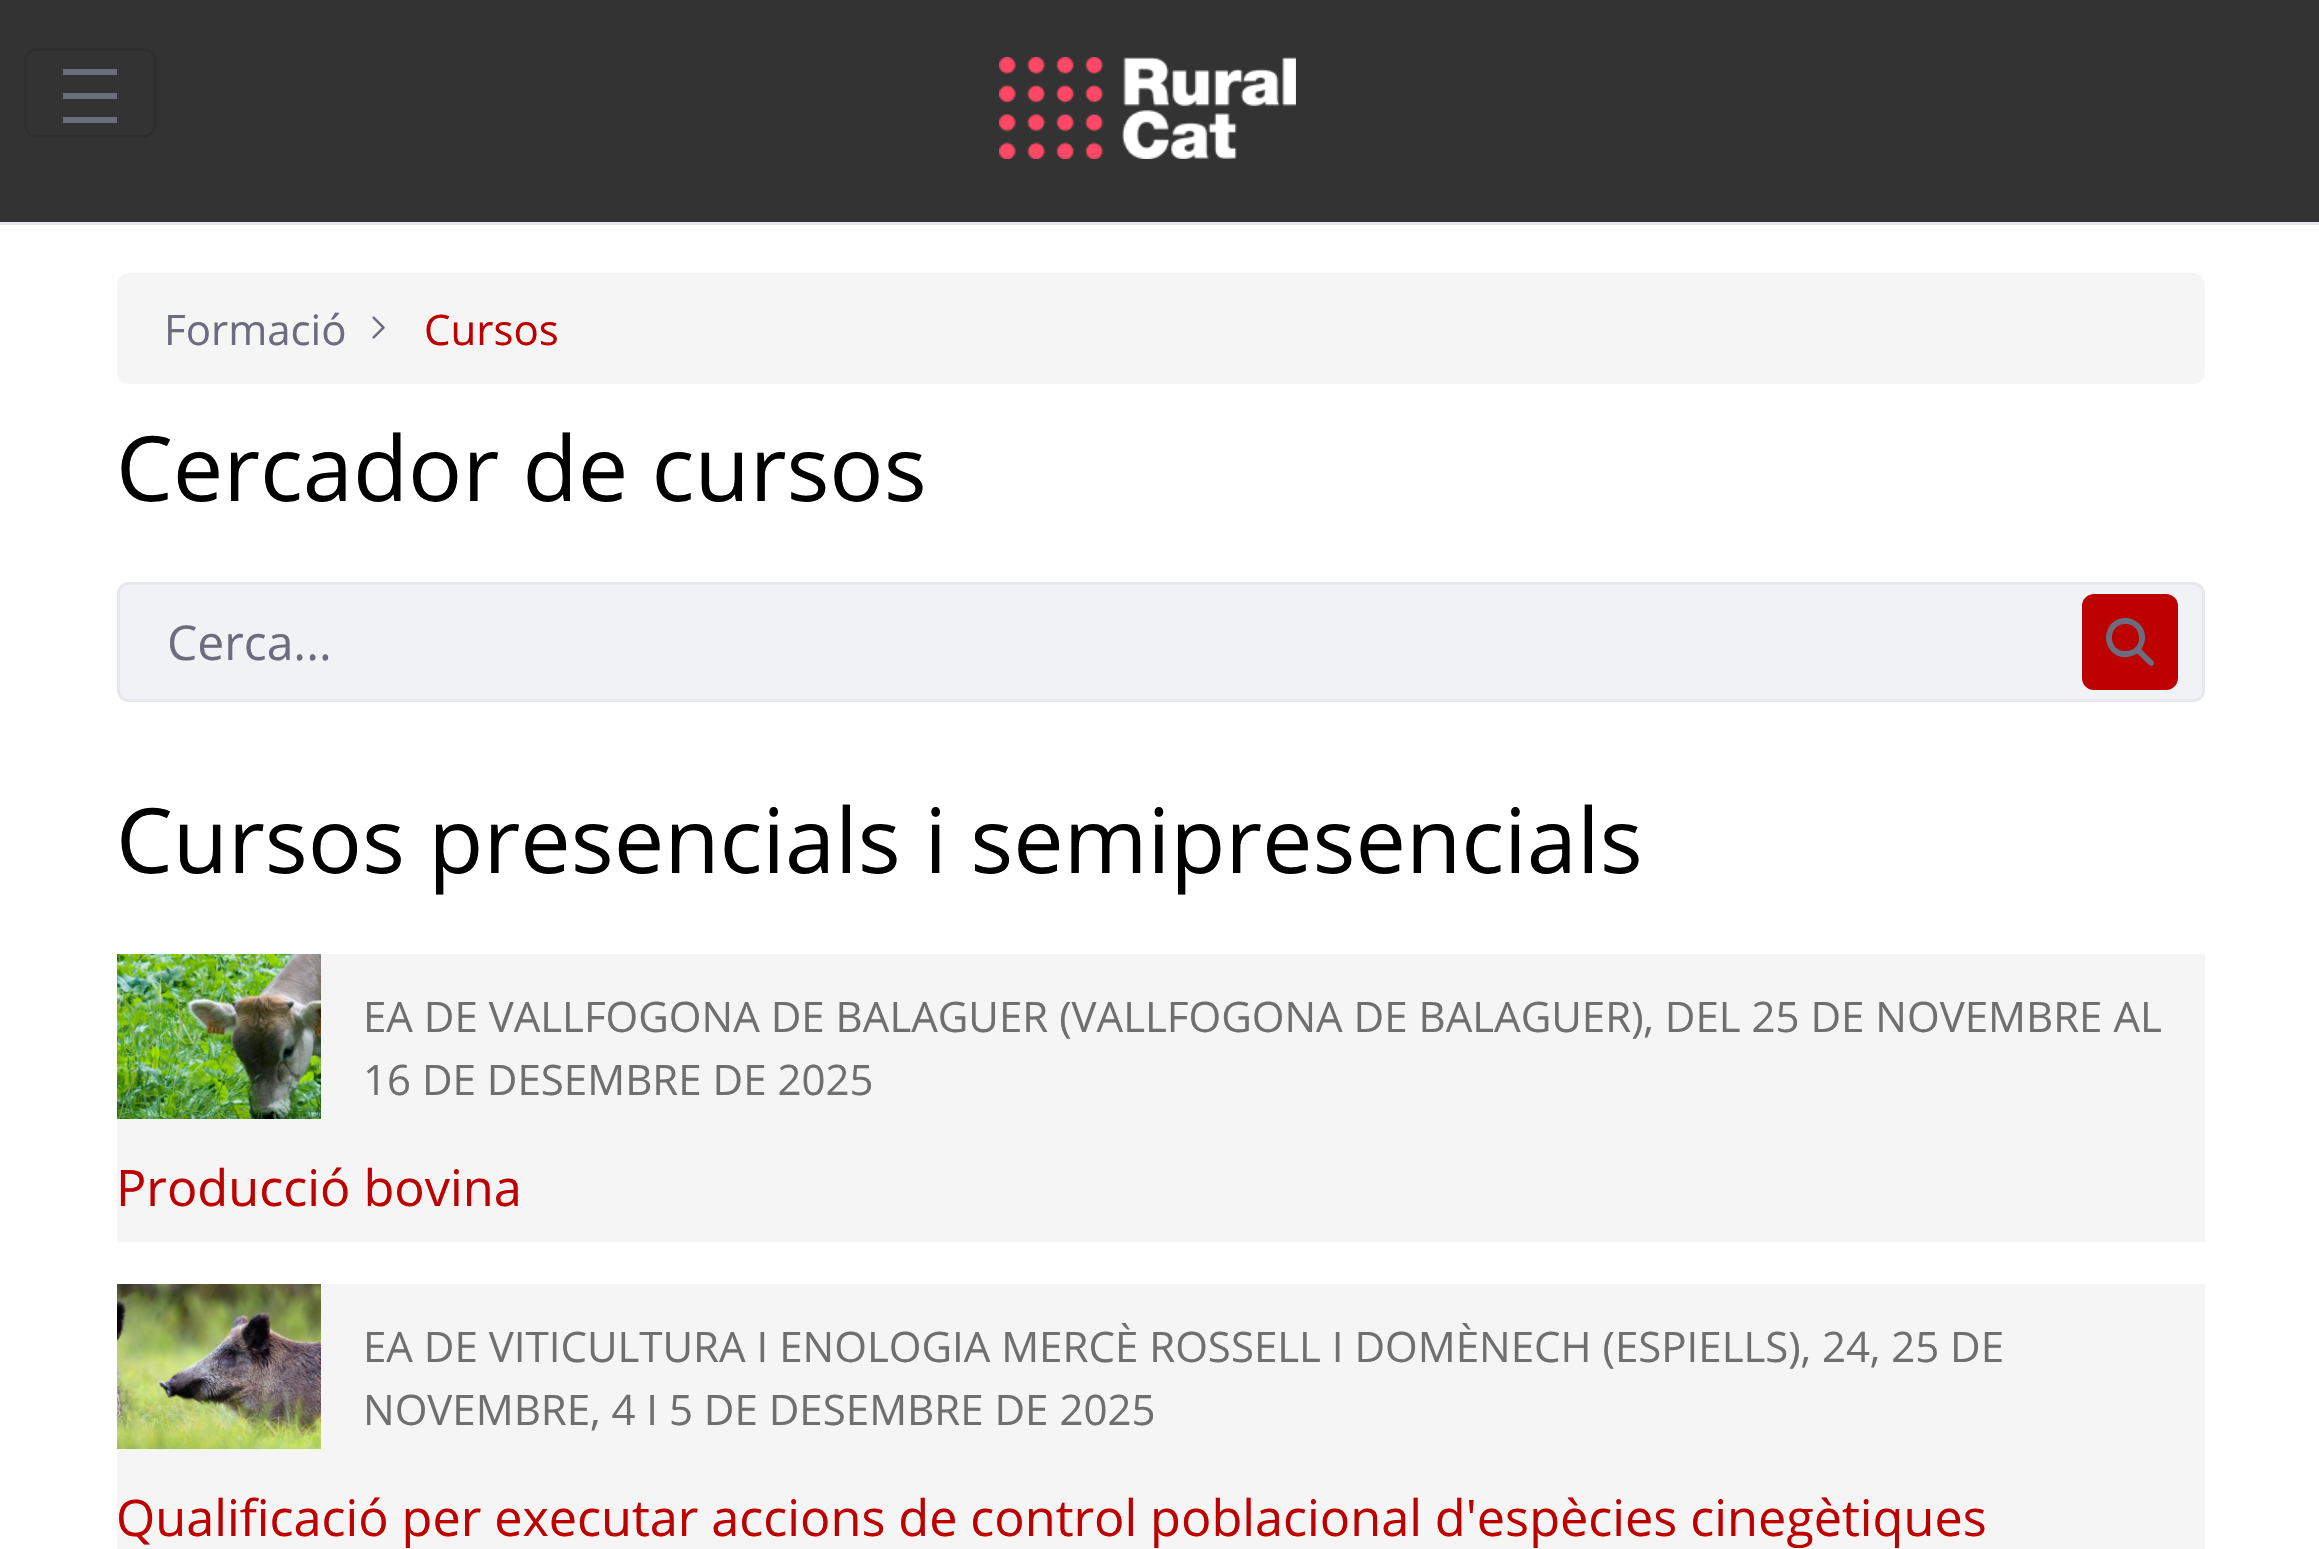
#include "include/core/SkBlurTypes.h"
#include "include/core/SkCanvas.h"
#include "include/core/SkData.h"
#include "include/core/SkFont.h"
#include "include/core/SkFontMgr.h"
#include "include/core/SkImage.h"
#include "include/core/SkMaskFilter.h"
#include "include/core/SkPaint.h"
#include "include/core/SkPathBuilder.h"
#include "include/core/SkTextBlob.h"
#include "include/effects/SkDashPathEffect.h"
#include "include/effects/SkGradientShader.h"
#include "include/utils/SkParsePath.h"

extern sk_sp<SkFontMgr> fontMgr;

static SkFont font(const char* family, int weight, float size, bool italic = false) {
    SkFontStyle style(weight, SkFontStyle::kNormal_Width,
        italic ? SkFontStyle::kItalic_Slant : SkFontStyle::kUpright_Slant);
    SkFont result(fontMgr->matchFamilyStyle(family, style), size);
    result.setSubpixel(true);
    return result;
}

static void drawLabel(SkCanvas* canvas, const char* s, float x, float y, const SkFont& font, SkColor color) {
    SkPaint ink(SkColor4f::FromColor(color));
    ink.setAntiAlias(true);
    canvas->drawString(s, x, y, font, ink);
}

static void drawTracked(SkCanvas* canvas, const char* s, float x, float y, const SkFont& font, const SkPaint& ink, float letter, float word) {
    std::vector<SkGlyphID> glyphs(font.countText(s, strlen(s), SkTextEncoding::kUTF8));
    std::vector<float> xs(glyphs.size());
    font.textToGlyphs(s, strlen(s), SkTextEncoding::kUTF8, glyphs);
    font.getXPos(glyphs, xs, x);
    float extra = 0;
    for (size_t i = 0; i < glyphs.size(); i++) {
        xs[i] += extra;
        extra += letter + word * (glyphs[i] == font.unicharToGlyph(' '));
    }
    canvas->drawTextBlob(SkTextBlob::MakeFromPosHGlyphs(glyphs, xs, y, font), 0, 0, ink);
}

static void fillRect(SkCanvas* canvas, float x, float y, float w, float h, SkColor color) {
    SkPaint ink(SkColor4f::FromColor(color));
    ink.setAntiAlias(true);
    canvas->drawRect(SkRect::MakeXYWH(x, y, w, h), ink);
}

static void fillRRect(SkCanvas* canvas, float x, float y, float w, float h, float radius, SkColor color) {
    SkPaint ink(SkColor4f::FromColor(color));
    ink.setAntiAlias(true);
    canvas->drawRoundRect(SkRect::MakeXYWH(x, y, w, h), radius, radius, ink);
}

static void drawPhoto(SkCanvas* canvas, const char* path, float x, float y, float w, float h) {
    auto image = SkImages::DeferredFromEncodedData(SkData::MakeFromFileName(path));
    canvas->drawImageRect(image, SkRect::MakeXYWH(x, y, w, h), SkSamplingOptions());
}

static SkPath parsePath(const char* data, bool evenOdd = false) {
    SkPath result = *SkParsePath::FromSVGString(data);
    if (evenOdd) result.setFillType(SkPathFillType::kEvenOdd);
    return result;
}

void draw(SkCanvas* canvas) {
    SkPaint paint;
    paint.setAntiAlias(true);
    canvas->clear(0xFFFFFFFF);
    fillRect(canvas, 0, 0, 2319, 222, 0xFF333333);
    fillRect(canvas, 0, 222, 2319, 3, 0xFFE7E7ED);
    paint.setStroke(true);
    paint.setStrokeWidth(3);
    paint.setColor(0xFF2E2E2E);
    canvas->drawRoundRect(SkRect::MakeXYWH(25.5f, 49.5f, 129, 87), 10.5f, 10.5f, paint);
    canvas->save();
    canvas->clipRect(SkRect::MakeXYWH(63, 69, 54, 54));
    paint.setStrokeWidth(6);
    paint.setStrokeCap(SkPaint::kRound_Cap);
    paint.setColor(0xFF6B6C7E);
    canvas->drawPath(parsePath("M57 72H123M57 96H123M57 120H123"), paint);
    canvas->restore();
    drawPhoto(canvas, "assets/img1.png", 999, 57, 297, 102);
    fillRRect(canvas, 117, 273, 2088, 111, 12, 0xFFF5F5F5);
    SkFont font1 = font("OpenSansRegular", 400, 42);
    drawLabel(canvas, "Formació", 164, 345, font1, 0xFF6B6C7E);
    drawPhoto(canvas, "assets/img2.png", 372, 316, 13, 23);
    drawLabel(canvas, "Cursos", 424, 345, font1, 0xFFBD0000);
    SkFont font2 = font("OpenSansRegular", 400, 90);
    drawLabel(canvas, "Cercador de cursos", 116, 501, font2, 0xFF000000);
    paint.setStroke(false);
    paint.setColor(0xFFF1F2F5);
    canvas->drawPath(parsePath("M129 585H2058V699H129C124 699 120 695 120 690V594C120 589 124 585 129 585Z"), paint);
    paint.setColor(0xFFE7E7ED);
    canvas->drawPath(parsePath("M129 582H2058V702H129C122 702 117 697 117 690V594C117 587 122 582 129 582ZM129 585H2058V699H129C124 699 120 695 120 690V594C120 589 124 585 129 585Z", true), paint);
    SkFont font3 = font("OpenSansRegular", 400, 48);
    drawLabel(canvas, "Cerca...", 167, 660, font3, 0xFF6B6C7E);
    paint.setColor(0xFFF1F2F5);
    canvas->drawPath(parsePath("M2058 585H2193C2198 585 2202 589 2202 594V690C2202 695 2198 699 2193 699H2058Z"), paint);
    paint.setColor(0xFFE7E7ED);
    canvas->drawPath(parsePath("M2058 582H2193C2200 582 2205 587 2205 594V690C2205 697 2200 702 2193 702H2058ZM2058 585H2193C2198 585 2202 589 2202 594V690C2202 695 2198 699 2193 699H2058Z", true), paint);
    fillRRect(canvas, 2082, 594, 96, 96, 12, 0xFFBD0000);
    drawPhoto(canvas, "assets/img3.png", 2106, 618, 48, 48);
    drawLabel(canvas, "Cursos presencials i semipresencials", 116, 873, font2, 0xFF000000);
    fillRect(canvas, 117, 954, 2088, 288, 0xFFF5F5F5);
    drawPhoto(canvas, "assets/img4.png", 117, 954, 204, 165);
    drawLabel(canvas, "EA DE VALLFOGONA DE BALAGUER (VALLFOGONA DE BALAGUER), DEL 25 DE NOVEMBRE AL", 363, 1032, font1, 0xFF6F6F6F);
    drawLabel(canvas, "16 DE DESEMBRE DE 2025", 363, 1095, font1, 0xFF6F6F6F);
    SkFont font4 = font("OpenSansRegular", 400, 50.4f);
    drawLabel(canvas, "Producció bovina", 116, 1206, font4, 0xFFBD0000);
    fillRect(canvas, 117, 1284, 2088, 265, 0xFFF5F5F5);
    drawPhoto(canvas, "assets/img5.png", 117, 1284, 204, 165);
    drawLabel(canvas, "EA DE VITICULTURA I ENOLOGIA MERCÈ ROSSELL I DOMÈNECH (ESPIELLS), 24, 25 DE", 363, 1362, font1, 0xFF6F6F6F);
    drawLabel(canvas, "NOVEMBRE, 4 I 5 DE DESEMBRE DE 2025", 363, 1425, font1, 0xFF6F6F6F);
    paint.setColor(0xFFBD0000);
    drawTracked(canvas, "Qualificació per executar accions de control poblacional d'espècies cinegètiques", 116, 1536, font4, paint, 0, -0.25f);
}
